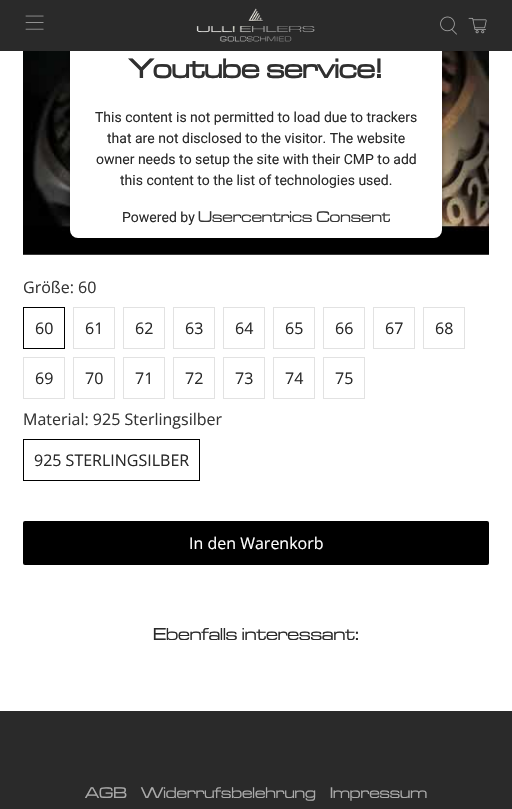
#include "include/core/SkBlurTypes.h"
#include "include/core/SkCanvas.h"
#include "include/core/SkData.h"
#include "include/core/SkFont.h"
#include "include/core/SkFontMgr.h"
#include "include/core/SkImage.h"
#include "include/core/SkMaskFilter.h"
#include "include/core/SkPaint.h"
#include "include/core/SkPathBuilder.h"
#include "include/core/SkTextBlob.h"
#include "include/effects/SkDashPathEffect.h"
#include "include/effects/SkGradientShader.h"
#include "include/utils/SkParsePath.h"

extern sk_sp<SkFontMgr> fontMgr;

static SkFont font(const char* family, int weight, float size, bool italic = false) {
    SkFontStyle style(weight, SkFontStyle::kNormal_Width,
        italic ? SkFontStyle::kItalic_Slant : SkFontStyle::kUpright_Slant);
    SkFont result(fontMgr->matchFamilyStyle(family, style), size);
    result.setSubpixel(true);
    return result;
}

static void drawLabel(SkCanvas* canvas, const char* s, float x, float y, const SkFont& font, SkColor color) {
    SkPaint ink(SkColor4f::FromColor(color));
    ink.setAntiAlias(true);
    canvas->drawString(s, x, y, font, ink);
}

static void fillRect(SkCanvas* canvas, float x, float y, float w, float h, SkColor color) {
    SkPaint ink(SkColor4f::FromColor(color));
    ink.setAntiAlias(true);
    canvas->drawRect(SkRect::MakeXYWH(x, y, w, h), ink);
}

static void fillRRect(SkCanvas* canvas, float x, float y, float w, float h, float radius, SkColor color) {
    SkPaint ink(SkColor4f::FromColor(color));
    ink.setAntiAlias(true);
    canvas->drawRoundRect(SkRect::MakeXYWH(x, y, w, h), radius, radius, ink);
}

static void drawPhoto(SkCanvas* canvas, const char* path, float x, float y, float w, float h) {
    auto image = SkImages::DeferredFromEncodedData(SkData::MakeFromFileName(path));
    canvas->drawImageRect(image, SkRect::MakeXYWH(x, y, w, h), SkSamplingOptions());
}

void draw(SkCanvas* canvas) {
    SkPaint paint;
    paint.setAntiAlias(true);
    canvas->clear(0xFFFFFFFF);
    drawPhoto(canvas, "assets/img5.png", 23, 51, 466, 204);
    paint.setColor(0x80000000);
    paint.setMaskFilter(SkMaskFilter::MakeBlur(kNormal_SkBlurStyle, 3));
    canvas->drawRoundRect(SkRect::MakeXYWH(70, -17, 372, 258), 8, 8, paint);
    paint.setMaskFilter(nullptr);
    fillRRect(canvas, 70, -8, 372, 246, 8, 0xFFFFFFFF);
    fillRect(canvas, 0, 0, 512, 51, 0xFF2A2A2A);
    drawPhoto(canvas, "assets/img1.png", 25, 15, 19, 15);
    drawPhoto(canvas, "assets/img2.png", 196, 8, 119, 34);
    drawPhoto(canvas, "assets/img3.png", 440, 16, 17, 19);
    drawPhoto(canvas, "assets/img4.png", 468, 17, 19, 17);
    SkFont font1 = font("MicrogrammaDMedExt", 700, 28);
    drawLabel(canvas, "Youtube service!", 129, 78, font1, 0xFF303030);
    SkFont font2 = font("Roboto", 400, 14);
    drawLabel(canvas, "This content is not permitted to load due to trackers", 95, 122, font2, 0xFF2A2A2A);
    drawLabel(canvas, "that are not disclosed to the visitor. The website", 107, 143, font2, 0xFF2A2A2A);
    drawLabel(canvas, "owner needs to setup the site with their CMP to add", 96, 164, font2, 0xFF2A2A2A);
    drawLabel(canvas, "this content to the list of technologies used.", 120, 185, font2, 0xFF2A2A2A);
    drawLabel(canvas, "Powered by", 122, 222, font2, 0xFF2A2A2A);
    SkFont font3 = font("MicrogrammaDMedExt", 400, 16);
    drawLabel(canvas, "Usercentrics Consent", 198, 222, font3, 0xFF363636);
    SkFont font4 = font("Open Sans", 400, 16);
    drawLabel(canvas, "Größe: 60", 23, 293, font4, 0xFF363636);
    paint.setStroke(true);
    paint.setStrokeWidth(1);
    paint.setColor(0xFF000000);
    canvas->drawRect(SkRect::MakeXYWH(23.5f, 307.5f, 41, 41), paint);
    drawLabel(canvas, "60", 35, 334, font4, 0xFF2A2A2A);
    paint.setColor(0xFFE2E2E2);
    canvas->drawRect(SkRect::MakeXYWH(73.5f, 307.5f, 41, 41), paint);
    drawLabel(canvas, "61", 85, 334, font4, 0xFF2A2A2A);
    canvas->drawRect(SkRect::MakeXYWH(123.5f, 307.5f, 41, 41), paint);
    drawLabel(canvas, "62", 135, 334, font4, 0xFF2A2A2A);
    canvas->drawRect(SkRect::MakeXYWH(173.5f, 307.5f, 41, 41), paint);
    drawLabel(canvas, "63", 185, 334, font4, 0xFF2A2A2A);
    canvas->drawRect(SkRect::MakeXYWH(223.5f, 307.5f, 41, 41), paint);
    drawLabel(canvas, "64", 235, 334, font4, 0xFF2A2A2A);
    canvas->drawRect(SkRect::MakeXYWH(273.5f, 307.5f, 41, 41), paint);
    drawLabel(canvas, "65", 285, 334, font4, 0xFF2A2A2A);
    canvas->drawRect(SkRect::MakeXYWH(323.5f, 307.5f, 41, 41), paint);
    drawLabel(canvas, "66", 335, 334, font4, 0xFF2A2A2A);
    canvas->drawRect(SkRect::MakeXYWH(373.5f, 307.5f, 41, 41), paint);
    drawLabel(canvas, "67", 385, 334, font4, 0xFF2A2A2A);
    canvas->drawRect(SkRect::MakeXYWH(423.5f, 307.5f, 41, 41), paint);
    drawLabel(canvas, "68", 435, 334, font4, 0xFF2A2A2A);
    canvas->drawRect(SkRect::MakeXYWH(23.5f, 357.5f, 41, 41), paint);
    drawLabel(canvas, "69", 35, 384, font4, 0xFF2A2A2A);
    canvas->drawRect(SkRect::MakeXYWH(73.5f, 357.5f, 41, 41), paint);
    drawLabel(canvas, "70", 85, 384, font4, 0xFF2A2A2A);
    canvas->drawRect(SkRect::MakeXYWH(123.5f, 357.5f, 41, 41), paint);
    drawLabel(canvas, "71", 135, 384, font4, 0xFF2A2A2A);
    canvas->drawRect(SkRect::MakeXYWH(173.5f, 357.5f, 41, 41), paint);
    drawLabel(canvas, "72", 185, 384, font4, 0xFF2A2A2A);
    canvas->drawRect(SkRect::MakeXYWH(223.5f, 357.5f, 41, 41), paint);
    drawLabel(canvas, "73", 235, 384, font4, 0xFF2A2A2A);
    canvas->drawRect(SkRect::MakeXYWH(273.5f, 357.5f, 41, 41), paint);
    drawLabel(canvas, "74", 285, 384, font4, 0xFF2A2A2A);
    canvas->drawRect(SkRect::MakeXYWH(323.5f, 357.5f, 41, 41), paint);
    drawLabel(canvas, "75", 335, 384, font4, 0xFF2A2A2A);
    drawLabel(canvas, "Material: 925 Sterlingsilber", 23, 425, font4, 0xFF363636);
    paint.setColor(0xFF000000);
    canvas->drawRect(SkRect::MakeXYWH(23.5f, 439.5f, 176, 41), paint);
    drawLabel(canvas, "925 STERLINGSILBER", 34, 466, font4, 0xFF2A2A2A);
    fillRRect(canvas, 23, 521, 466, 44, 2, 0xFF000000);
    drawLabel(canvas, "In den Warenkorb", 189, 549, font4, 0xFFFFFFFF);
    SkFont font5 = font("MicrogrammaDMedExt", 400, 18);
    drawLabel(canvas, "Ebenfalls interessant:", 153, 640, font5, 0xFF2A2A2A);
    fillRect(canvas, 0, 711, 512, 98, 0xFF2A2A2A);
    drawLabel(canvas, "AGB", 85, 798, font3, 0xFFAAAAAA);
    drawLabel(canvas, "Widerrufsbelehrung", 141, 798, font3, 0xFFAAAAAA);
    drawLabel(canvas, "Impressum", 330, 798, font3, 0xFFAAAAAA);
}
